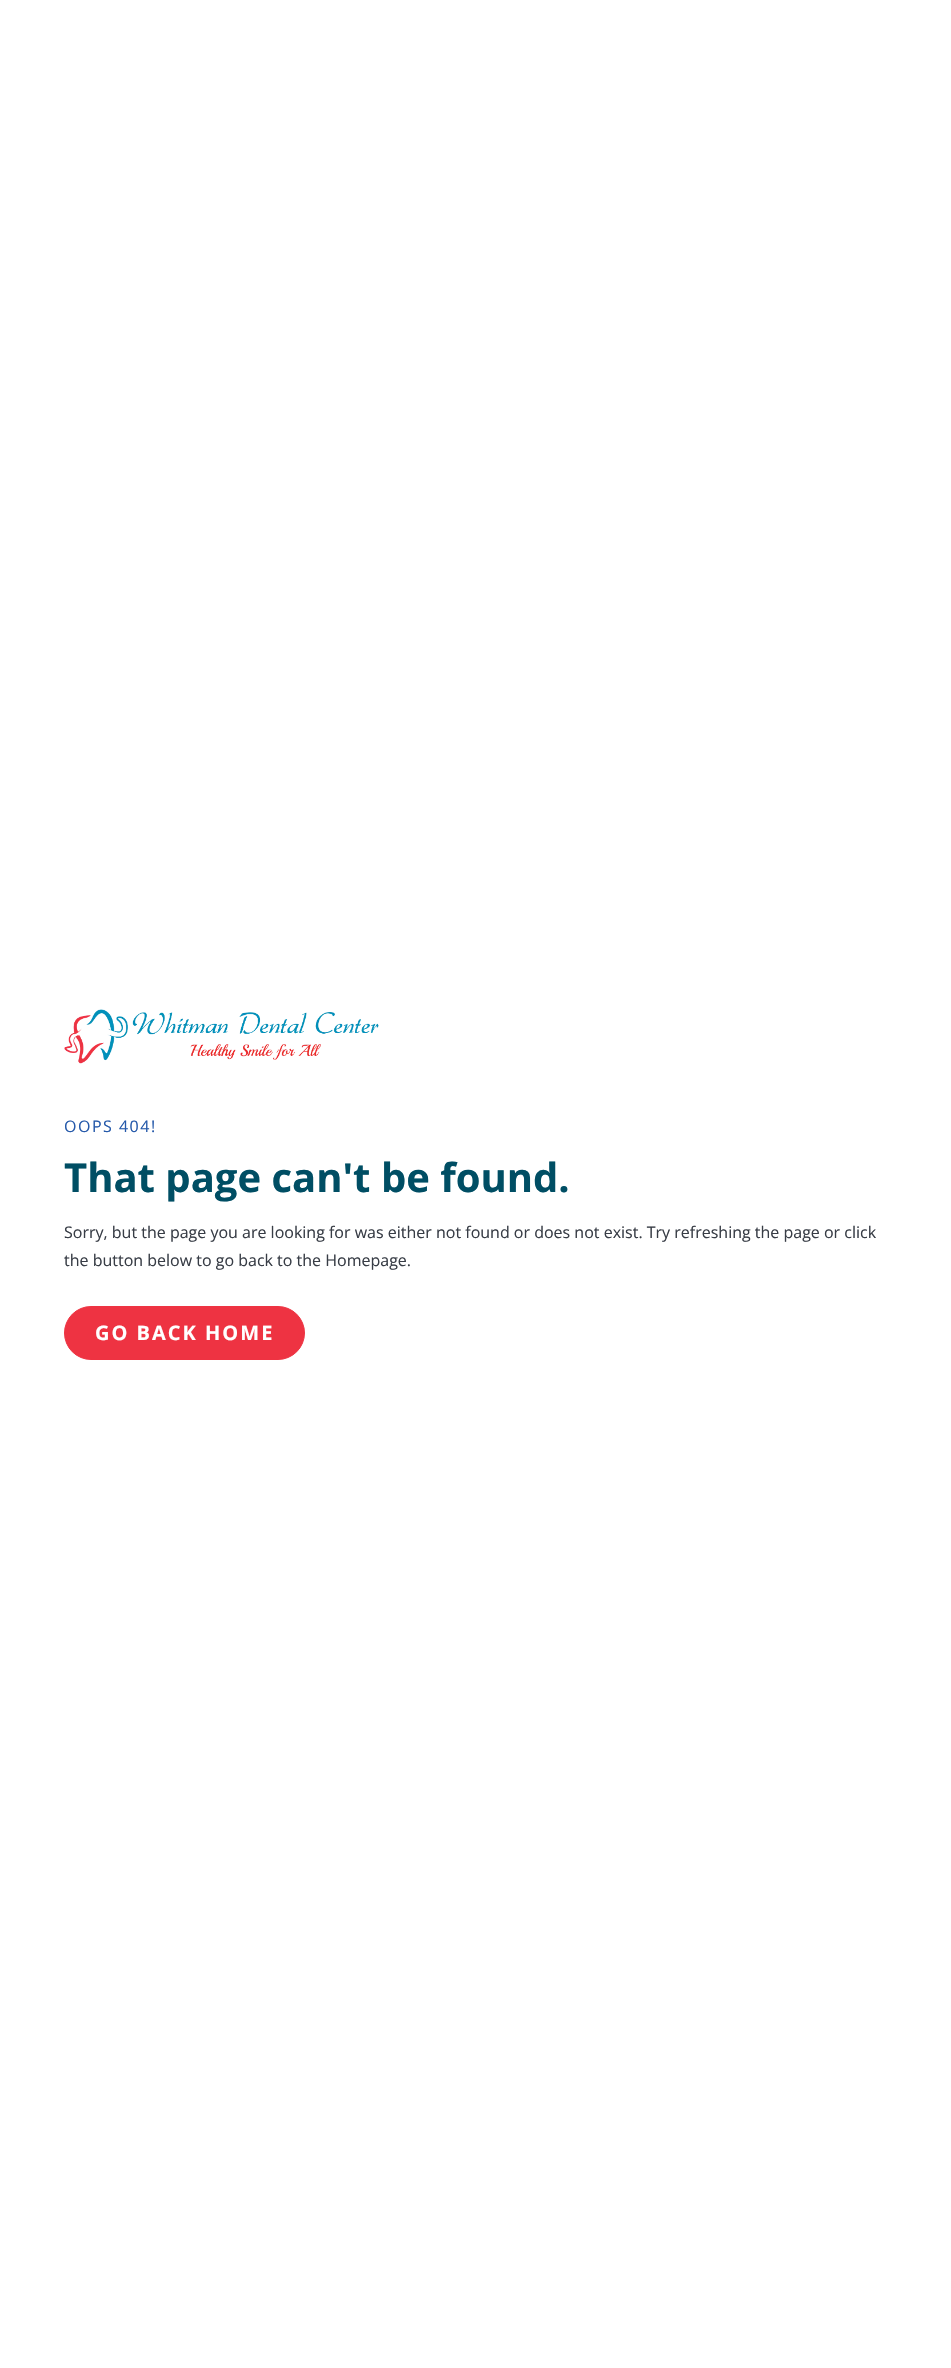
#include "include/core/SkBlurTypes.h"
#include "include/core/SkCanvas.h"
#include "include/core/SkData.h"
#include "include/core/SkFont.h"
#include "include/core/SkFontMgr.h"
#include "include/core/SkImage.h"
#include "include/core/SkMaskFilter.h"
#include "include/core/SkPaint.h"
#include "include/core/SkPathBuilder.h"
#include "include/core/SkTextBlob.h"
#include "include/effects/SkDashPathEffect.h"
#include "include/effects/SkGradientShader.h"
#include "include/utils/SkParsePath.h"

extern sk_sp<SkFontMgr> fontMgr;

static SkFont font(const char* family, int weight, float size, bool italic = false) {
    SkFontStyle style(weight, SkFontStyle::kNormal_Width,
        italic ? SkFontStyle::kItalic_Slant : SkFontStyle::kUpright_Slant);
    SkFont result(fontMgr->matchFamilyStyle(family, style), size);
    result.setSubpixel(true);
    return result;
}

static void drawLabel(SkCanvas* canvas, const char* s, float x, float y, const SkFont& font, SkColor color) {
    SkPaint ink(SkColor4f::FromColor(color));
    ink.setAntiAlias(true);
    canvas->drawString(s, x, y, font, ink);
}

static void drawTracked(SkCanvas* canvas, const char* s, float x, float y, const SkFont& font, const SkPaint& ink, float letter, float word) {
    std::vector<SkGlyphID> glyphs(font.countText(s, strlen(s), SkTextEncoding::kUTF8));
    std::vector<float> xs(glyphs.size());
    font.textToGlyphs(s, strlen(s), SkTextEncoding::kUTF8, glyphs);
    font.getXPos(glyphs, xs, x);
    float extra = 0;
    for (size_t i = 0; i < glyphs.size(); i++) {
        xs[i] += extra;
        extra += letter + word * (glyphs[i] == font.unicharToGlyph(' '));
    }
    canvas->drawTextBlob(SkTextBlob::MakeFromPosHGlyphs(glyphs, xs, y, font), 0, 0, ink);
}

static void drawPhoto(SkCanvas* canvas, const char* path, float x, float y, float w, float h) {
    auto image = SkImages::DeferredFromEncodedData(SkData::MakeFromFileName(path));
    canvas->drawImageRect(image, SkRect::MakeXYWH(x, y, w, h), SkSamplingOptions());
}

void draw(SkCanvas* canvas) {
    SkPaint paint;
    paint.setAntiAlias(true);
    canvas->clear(0xFFFFFFFF);
    drawPhoto(canvas, "assets/img1.png", 64, 1009, 315, 55);
    SkFont font1 = font("Open Sans", 400, 16);
    paint.setColor(0xFF2559AA);
    drawTracked(canvas, "OOPS 404!", 64, 1132, font1, paint, 1.5f, 0);
    SkFont font2 = font("Open Sans", 700, 40);
    drawLabel(canvas, "That page can't be found.", 64, 1192, font2, 0xFF004E64);
    drawLabel(canvas, "Sorry, but the page you are looking for was either not found or does not exist. Try refreshing the page or click", 64, 1238, font1, 0xFF383D46);
    drawLabel(canvas, "the button below to go back to the Homepage.", 64, 1266, font1, 0xFF383D46);
    paint.setColor(0xFFEE3342);
    canvas->drawRoundRect(SkRect::MakeXYWH(64.5f, 1306.5f, 240, 53), 26.5f, 26.5f, paint);
    paint.setStroke(true);
    paint.setStrokeWidth(1);
    canvas->drawRoundRect(SkRect::MakeXYWH(64.5f, 1306.5f, 240, 53), 26.5f, 26.5f, paint);
    SkFont font3 = font("Open Sans", 700, 20);
    paint.setStroke(false);
    paint.setColor(0xFFFFFFFF);
    drawTracked(canvas, "GO BACK HOME", 95, 1340, font3, paint, 2, 0);
}
